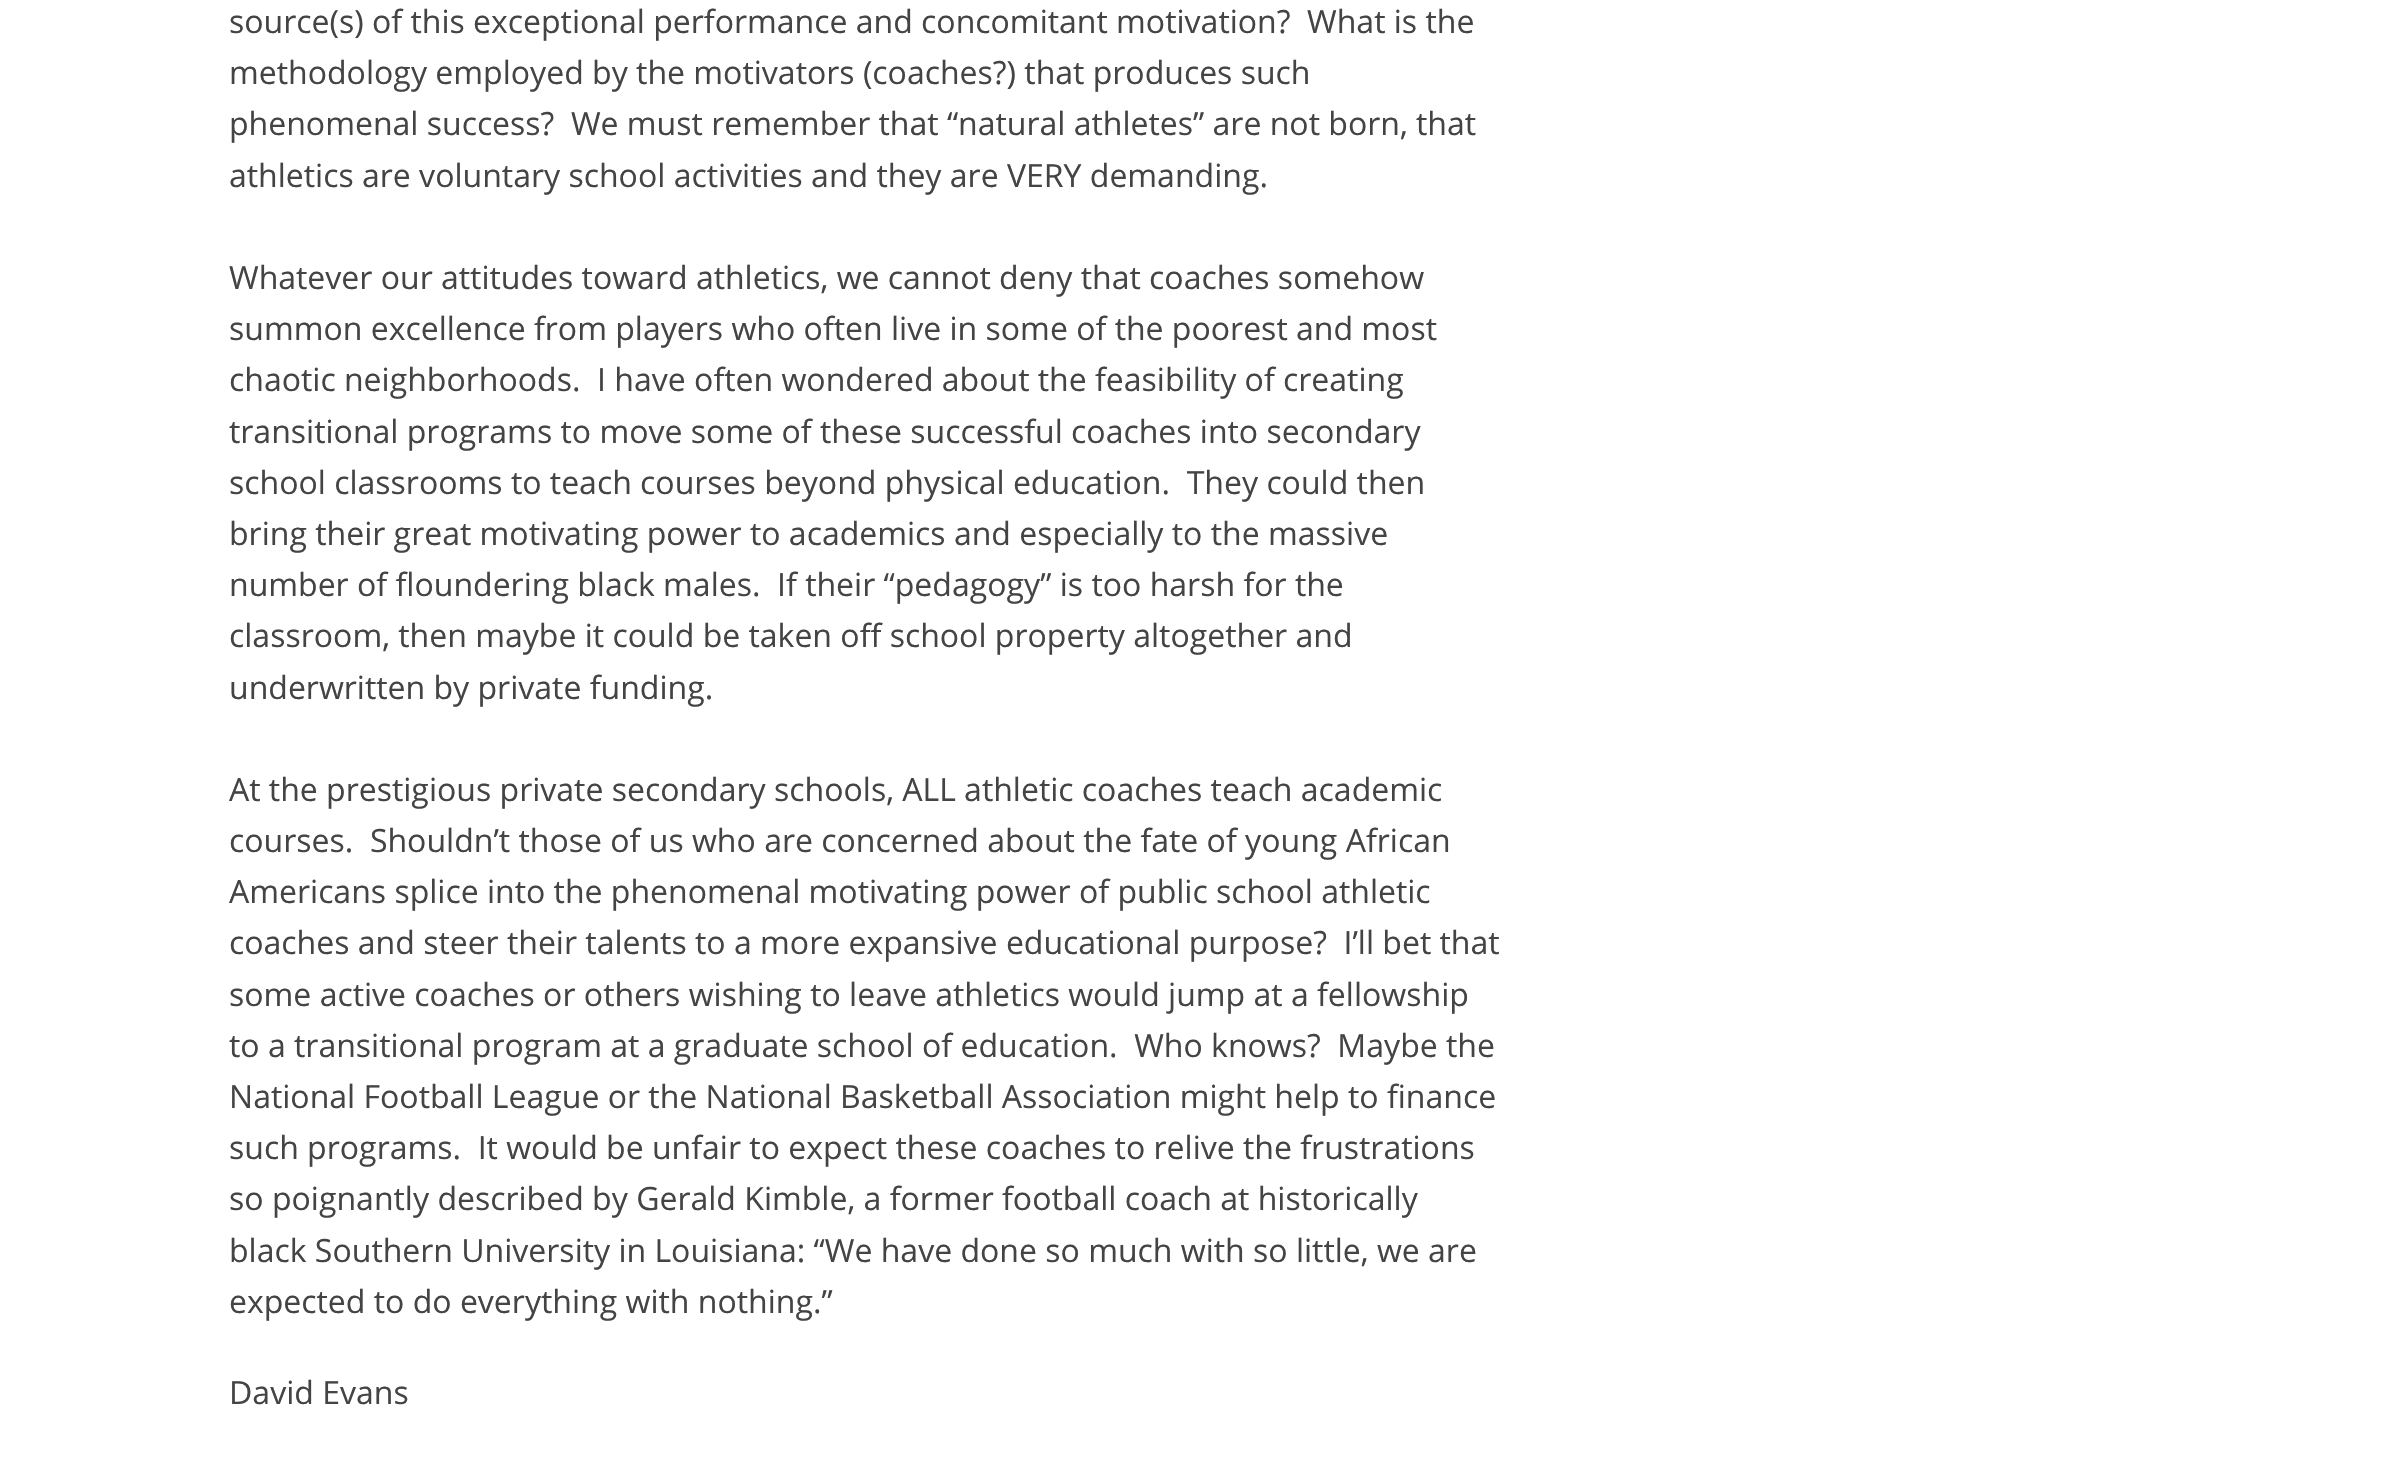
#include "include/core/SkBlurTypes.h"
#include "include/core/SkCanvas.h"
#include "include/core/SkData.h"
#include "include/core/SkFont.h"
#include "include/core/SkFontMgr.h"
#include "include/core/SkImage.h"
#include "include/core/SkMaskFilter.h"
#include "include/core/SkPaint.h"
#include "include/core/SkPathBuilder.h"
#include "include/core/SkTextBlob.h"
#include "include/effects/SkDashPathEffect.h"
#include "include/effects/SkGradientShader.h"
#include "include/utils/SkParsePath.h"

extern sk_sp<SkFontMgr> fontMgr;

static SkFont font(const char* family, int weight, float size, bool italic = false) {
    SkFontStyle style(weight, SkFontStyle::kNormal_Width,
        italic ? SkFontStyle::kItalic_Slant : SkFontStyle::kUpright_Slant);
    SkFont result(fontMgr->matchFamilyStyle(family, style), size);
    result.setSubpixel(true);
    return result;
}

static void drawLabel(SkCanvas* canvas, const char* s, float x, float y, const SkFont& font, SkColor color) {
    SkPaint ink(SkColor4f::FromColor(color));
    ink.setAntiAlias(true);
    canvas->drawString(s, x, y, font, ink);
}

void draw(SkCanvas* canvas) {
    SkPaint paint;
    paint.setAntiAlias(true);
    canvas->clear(0xFFFFFFFF);
    SkFont font1 = font("Open Sans", 400, 32);
    drawLabel(canvas, "source(s) of this exceptional performance and concomitant motivation?  What is the", 229, 33, font1, 0xFF444444);
    drawLabel(canvas, "methodology employed by the motivators (coaches?) that produces such", 229, 84, font1, 0xFF444444);
    drawLabel(canvas, "phenomenal success?  We must remember that “natural athletes” are not born, that", 229, 135, font1, 0xFF444444);
    drawLabel(canvas, "athletics are voluntary school activities and they are VERY demanding.", 229, 187, font1, 0xFF444444);
    drawLabel(canvas, "Whatever our attitudes toward athletics, we cannot deny that coaches somehow", 229, 289, font1, 0xFF444444);
    drawLabel(canvas, "summon excellence from players who often live in some of the poorest and most", 229, 340, font1, 0xFF444444);
    drawLabel(canvas, "chaotic neighborhoods.  I have often wondered about the feasibility of creating", 229, 391, font1, 0xFF444444);
    drawLabel(canvas, "transitional programs to move some of these successful coaches into secondary", 229, 443, font1, 0xFF444444);
    drawLabel(canvas, "school classrooms to teach courses beyond physical education.  They could then", 229, 494, font1, 0xFF444444);
    drawLabel(canvas, "bring their great motivating power to academics and especially to the massive", 229, 545, font1, 0xFF444444);
    drawLabel(canvas, "number of floundering black males.  If their “pedagogy” is too harsh for the", 229, 596, font1, 0xFF444444);
    drawLabel(canvas, "classroom, then maybe it could be taken off school property altogether and", 229, 647, font1, 0xFF444444);
    drawLabel(canvas, "underwritten by private funding.", 229, 699, font1, 0xFF444444);
    drawLabel(canvas, "At the prestigious private secondary schools, ALL athletic coaches teach academic", 229, 801, font1, 0xFF444444);
    drawLabel(canvas, "courses.  Shouldn’t those of us who are concerned about the fate of young African", 229, 852, font1, 0xFF444444);
    drawLabel(canvas, "Americans splice into the phenomenal motivating power of public school athletic", 229, 903, font1, 0xFF444444);
    drawLabel(canvas, "coaches and steer their talents to a more expansive educational purpose?  I’ll bet that", 229, 954, font1, 0xFF444444);
    drawLabel(canvas, "some active coaches or others wishing to leave athletics would jump at a fellowship", 229, 1006, font1, 0xFF444444);
    drawLabel(canvas, "to a transitional program at a graduate school of education.  Who knows?  Maybe the", 229, 1057, font1, 0xFF444444);
    drawLabel(canvas, "National Football League or the National Basketball Association might help to finance", 229, 1108, font1, 0xFF444444);
    drawLabel(canvas, "such programs.  It would be unfair to expect these coaches to relive the frustrations", 229, 1159, font1, 0xFF444444);
    drawLabel(canvas, "so poignantly described by Gerald Kimble, a former football coach at historically", 229, 1210, font1, 0xFF444444);
    drawLabel(canvas, "black Southern University in Louisiana: “We have done so much with so little, we are", 229, 1262, font1, 0xFF444444);
    drawLabel(canvas, "expected to do everything with nothing.”", 229, 1313, font1, 0xFF444444);
    drawLabel(canvas, "David Evans", 229, 1404, font1, 0xFF444444);
}
